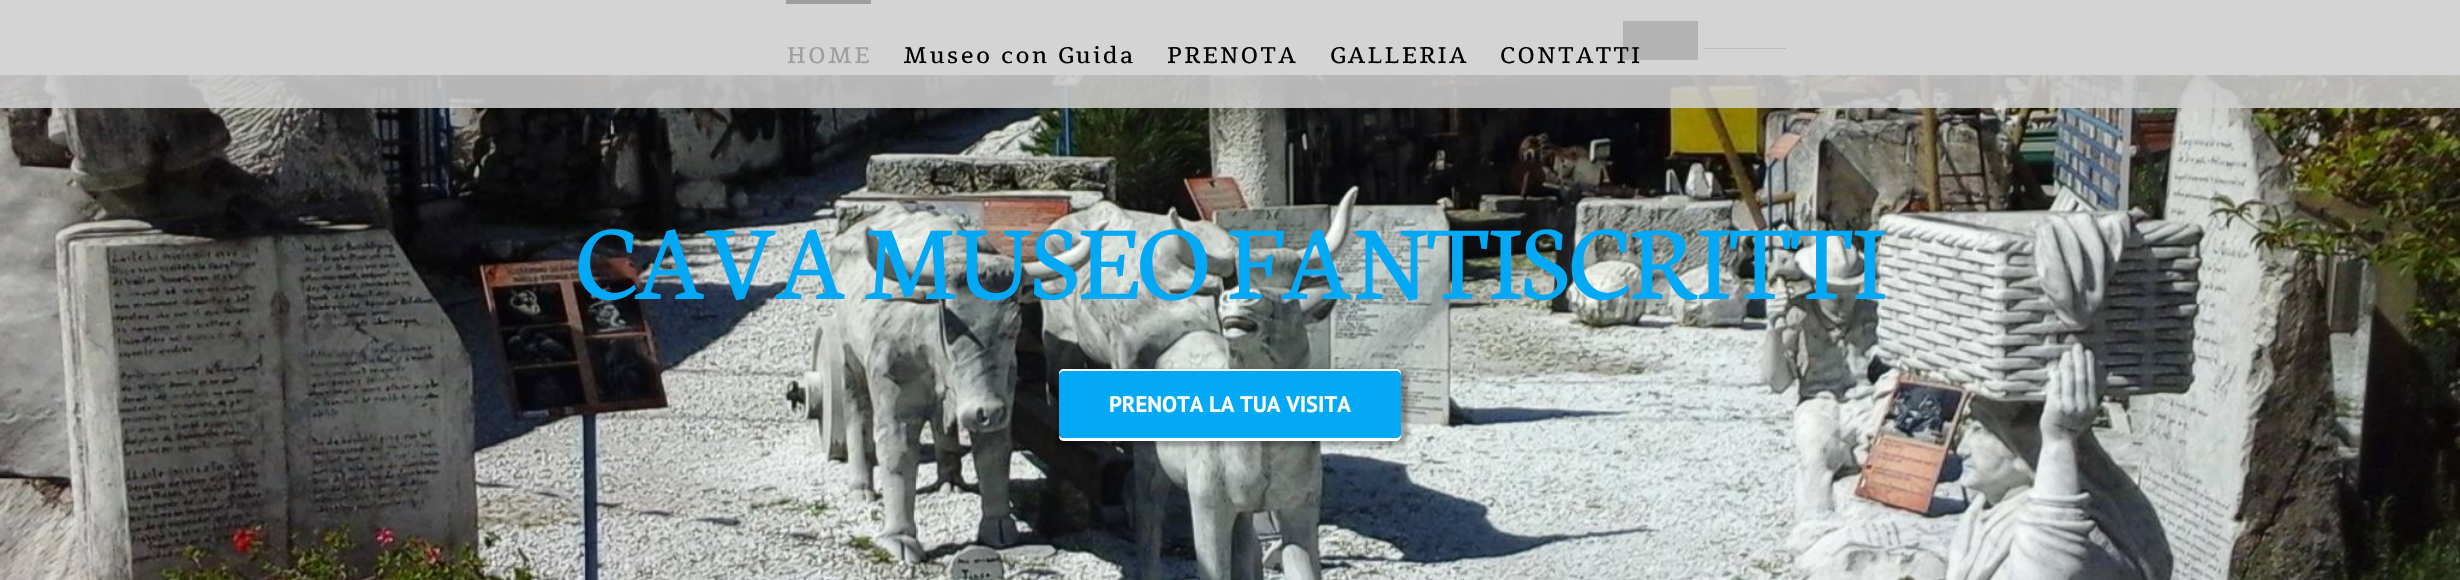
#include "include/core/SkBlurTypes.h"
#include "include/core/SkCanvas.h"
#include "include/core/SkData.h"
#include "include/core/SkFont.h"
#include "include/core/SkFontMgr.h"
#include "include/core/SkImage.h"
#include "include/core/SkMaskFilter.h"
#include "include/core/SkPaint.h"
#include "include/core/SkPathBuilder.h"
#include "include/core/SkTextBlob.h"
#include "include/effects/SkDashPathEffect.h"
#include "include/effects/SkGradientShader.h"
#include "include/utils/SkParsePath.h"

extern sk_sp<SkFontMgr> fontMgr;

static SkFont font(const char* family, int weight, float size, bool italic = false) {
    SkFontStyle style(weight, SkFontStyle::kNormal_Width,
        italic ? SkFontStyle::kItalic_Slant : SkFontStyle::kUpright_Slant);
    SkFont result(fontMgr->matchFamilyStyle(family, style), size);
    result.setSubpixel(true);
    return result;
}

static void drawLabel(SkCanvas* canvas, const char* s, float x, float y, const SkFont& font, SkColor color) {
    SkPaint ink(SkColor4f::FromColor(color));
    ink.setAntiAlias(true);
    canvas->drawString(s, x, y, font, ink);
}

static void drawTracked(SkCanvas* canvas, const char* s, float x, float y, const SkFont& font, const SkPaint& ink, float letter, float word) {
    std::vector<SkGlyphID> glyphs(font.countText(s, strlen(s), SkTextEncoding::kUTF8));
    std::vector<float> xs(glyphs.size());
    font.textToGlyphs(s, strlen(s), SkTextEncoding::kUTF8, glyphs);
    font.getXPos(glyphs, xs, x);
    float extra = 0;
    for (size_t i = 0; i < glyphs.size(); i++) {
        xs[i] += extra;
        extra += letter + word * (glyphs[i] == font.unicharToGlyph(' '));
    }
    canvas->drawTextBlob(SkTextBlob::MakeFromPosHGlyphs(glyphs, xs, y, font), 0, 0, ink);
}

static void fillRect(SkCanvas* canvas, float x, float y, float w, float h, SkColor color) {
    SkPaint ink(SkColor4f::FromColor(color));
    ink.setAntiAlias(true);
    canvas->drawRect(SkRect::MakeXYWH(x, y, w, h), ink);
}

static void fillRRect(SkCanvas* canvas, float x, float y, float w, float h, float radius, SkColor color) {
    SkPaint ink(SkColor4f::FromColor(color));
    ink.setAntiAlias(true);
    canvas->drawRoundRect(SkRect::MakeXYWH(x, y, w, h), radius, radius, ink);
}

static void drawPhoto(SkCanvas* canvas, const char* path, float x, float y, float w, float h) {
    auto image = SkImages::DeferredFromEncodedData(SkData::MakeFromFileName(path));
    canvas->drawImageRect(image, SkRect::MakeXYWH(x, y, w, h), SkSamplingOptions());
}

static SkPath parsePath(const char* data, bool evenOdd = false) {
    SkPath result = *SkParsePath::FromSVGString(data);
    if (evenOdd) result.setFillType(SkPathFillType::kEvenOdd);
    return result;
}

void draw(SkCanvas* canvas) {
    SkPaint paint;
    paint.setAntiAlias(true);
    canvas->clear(0xFFFFFFFF);
    drawPhoto(canvas, "assets/img1.png", 0, 75, 2460, 505);
    paint.setColor(0x4DACABAB);
    paint.setMaskFilter(SkMaskFilter::MakeBlur(kNormal_SkBlurStyle, 6));
    canvas->drawRect(SkRect::MakeXYWH(0, -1, 2460, 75), paint);
    paint.setMaskFilter(nullptr);
    fillRect(canvas, 0, 0, 2460, 75, 0xFFFFFFFF);
    fillRect(canvas, 1623, 21, 75, 39, 0xFF000000);
    fillRect(canvas, 1704, 48, 82, 1, 0xFF444444);
    fillRect(canvas, 0, 0, 2460, 108, 0xDECECECE);
    fillRect(canvas, 786, 0, 85, 4, 0xFF9E9E9E);
    SkFont font1 = font("Tienne", 400, 22.5f);
    paint.setColor(0xFF9E9E9E);
    drawTracked(canvas, "HOME", 787, 63, font1, paint, 2.5f, 0);
    paint.setColor(0xFF000000);
    drawTracked(canvas, "Museo con Guida", 903, 63, font1, paint, 2.5f, 0);
    drawTracked(canvas, "PRENOTA", 1167, 63, font1, paint, 2.5f, 0);
    drawTracked(canvas, "GALLERIA", 1330, 63, font1, paint, 2.5f, 0);
    drawTracked(canvas, "CONTATTI", 1500, 63, font1, paint, 2.5f, 0);
    SkFont font2 = font("Neuton", 400, 112.5f);
    drawLabel(canvas, "CAVA MUSEO FANTISCRITTI", 575, 299, font2, 0xFF03A9F4);
    paint.setColor(0x4D000000);
    paint.setMaskFilter(SkMaskFilter::MakeBlur(kNormal_SkBlurStyle, 2));
    canvas->drawRoundRect(SkRect::MakeXYWH(1058, 370, 350, 76), 9, 9, paint);
    paint.setMaskFilter(nullptr);
    paint.setColor(0xFFFFFFFF);
    canvas->drawPath(parsePath("M1059 435C1059 438 1060 441 1064 441H1396C1400 441 1401 438 1401 435C1400 437 1398 438 1396 438H1064C1062 438 1060 437 1059 435Z"), paint);
    fillRRect(canvas, 1059, 369, 342, 69, 5, 0xFF03A9F4);
    canvas->drawPath(parsePath("M1064 371H1396C1399 371 1401 373 1401 376V374C1401 371 1399 369 1396 369H1064C1061 369 1059 371 1059 374V376C1059 373 1061 371 1064 371Z"), paint);
    SkFont font3 = font("PT Sans", 700, 22.5f);
    drawLabel(canvas, "PRENOTA LA TUA VISITA", 1109, 412, font3, 0xFFFFFFFF);
}
